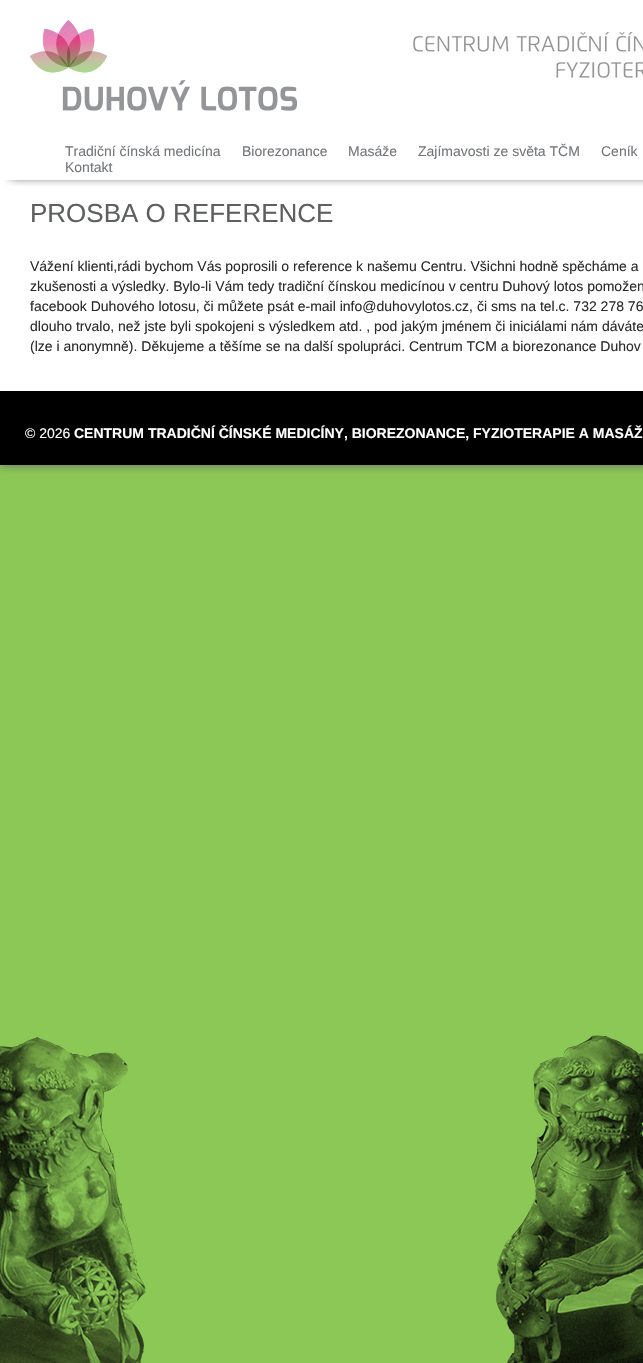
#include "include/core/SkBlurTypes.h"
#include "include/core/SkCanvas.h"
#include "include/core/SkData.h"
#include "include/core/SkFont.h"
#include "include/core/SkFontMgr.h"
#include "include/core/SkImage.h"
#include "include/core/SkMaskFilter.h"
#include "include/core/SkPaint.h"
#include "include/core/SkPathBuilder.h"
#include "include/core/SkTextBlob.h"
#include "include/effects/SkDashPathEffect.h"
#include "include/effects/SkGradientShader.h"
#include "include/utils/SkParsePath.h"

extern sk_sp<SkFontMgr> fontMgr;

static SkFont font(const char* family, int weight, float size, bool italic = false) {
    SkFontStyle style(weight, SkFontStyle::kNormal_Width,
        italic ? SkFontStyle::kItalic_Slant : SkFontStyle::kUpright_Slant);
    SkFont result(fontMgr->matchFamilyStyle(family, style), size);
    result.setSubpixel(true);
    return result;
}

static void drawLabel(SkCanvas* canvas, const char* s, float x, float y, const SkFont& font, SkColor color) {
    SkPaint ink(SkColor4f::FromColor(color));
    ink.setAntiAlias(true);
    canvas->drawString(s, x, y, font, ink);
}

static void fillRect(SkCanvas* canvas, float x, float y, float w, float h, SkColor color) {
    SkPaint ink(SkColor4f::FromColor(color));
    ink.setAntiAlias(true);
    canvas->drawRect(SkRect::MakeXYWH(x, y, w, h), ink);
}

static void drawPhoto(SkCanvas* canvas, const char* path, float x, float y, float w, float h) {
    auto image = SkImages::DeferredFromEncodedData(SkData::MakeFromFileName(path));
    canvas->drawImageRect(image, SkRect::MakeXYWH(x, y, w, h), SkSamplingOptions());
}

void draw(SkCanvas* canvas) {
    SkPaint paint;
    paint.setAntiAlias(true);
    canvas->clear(0xFF8CC856);
    paint.setColor(0xFF666666);
    paint.setMaskFilter(SkMaskFilter::MakeBlur(kNormal_SkBlurStyle, 5));
    canvas->drawRect(SkRect::MakeXYWH(0, 0, 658, 465), paint);
    paint.setMaskFilter(nullptr);
    fillRect(canvas, 0, 0, 643, 391, 0xFFFFFFFF);
    canvas->save();
    canvas->clipRect(SkRect::MakeXYWH(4, 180, 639, 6));
    paint.setColor(0xFF000000);
    paint.setMaskFilter(SkMaskFilter::MakeBlur(kNormal_SkBlurStyle, 5));
    canvas->drawRect(SkRect::MakeXYWH(10, 16, 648, 160), paint);
    paint.setMaskFilter(nullptr);
    canvas->restore();
    drawPhoto(canvas, "assets/img1.png", 30, 20, 267, 91);
    drawPhoto(canvas, "assets/img2.png", 413, 32, 230, 46);
    SkFont font1 = font("Liberation Sans", 400, 14);
    drawLabel(canvas, "Tradiční čínská medicína", 65, 156, font1, 0xFF737679);
    drawLabel(canvas, "Biorezonance", 242, 156, font1, 0xFF737679);
    drawLabel(canvas, "Masáže", 348, 156, font1, 0xFF737679);
    drawLabel(canvas, "Zajímavosti ze světa TČM", 418, 156, font1, 0xFF737679);
    drawLabel(canvas, "Ceník", 601, 156, font1, 0xFF737679);
    drawLabel(canvas, "Kontakt", 65, 172, font1, 0xFF737679);
    SkFont font2 = font("Liberation Sans", 400, 26);
    drawLabel(canvas, "PROSBA O REFERENCE", 30, 222, font2, 0xFF5D5F60);
    drawLabel(canvas, "Vážení klienti,rádi bychom Vás poprosili o reference k našemu Centru. Všichni hodně spěcháme a", 30, 271, font1, 0xFF2B2B2B);
    drawLabel(canvas, "zkušenosti a výsledky. Bylo-li Vám tedy tradiční čínskou medicínou v centru Duhový lotos pomožen", 30, 291, font1, 0xFF2B2B2B);
    drawLabel(canvas, "facebook Duhového lotosu, či můžete psát e-mail info@duhovylotos.cz, či sms na tel.c. 732 278 76", 30, 311, font1, 0xFF2B2B2B);
    drawLabel(canvas, "dlouho trvalo, než jste byli spokojeni s výsledkem atd. , pod jakým jménem či iniciálami nám dáváte", 30, 331, font1, 0xFF2B2B2B);
    drawLabel(canvas, "(lze i anonymně). Děkujeme a těšíme se na další spolupráci. Centrum TCM a biorezonance Duhov", 30, 351, font1, 0xFF2B2B2B);
    fillRect(canvas, 0, 391, 643, 74, 0xFF000000);
    drawLabel(canvas, "© 2026", 25, 438, font1, 0xFFFFFFFF);
    SkFont font3 = font("Liberation Sans", 700, 14);
    drawLabel(canvas, "CENTRUM TRADIČNÍ ČÍNSKÉ MEDICÍNY, BIOREZONANCE, FYZIOTERAPIE A MASÁŽ", 74, 438, font3, 0xFFFFFFFF);
    drawPhoto(canvas, "assets/img3.png", 0, 1037, 146, 326);
    drawPhoto(canvas, "assets/img4.png", 496, 1035, 147, 328);
}
